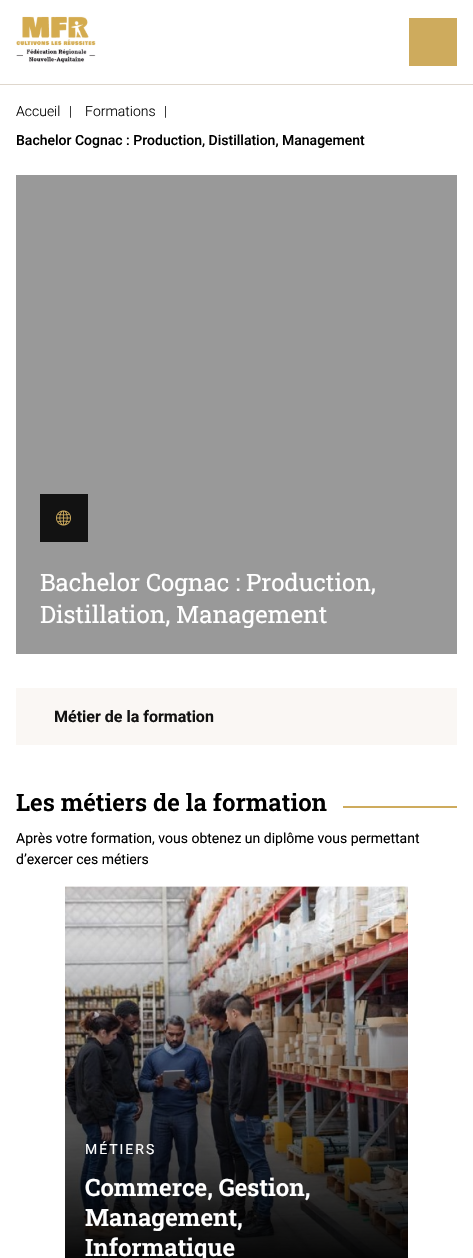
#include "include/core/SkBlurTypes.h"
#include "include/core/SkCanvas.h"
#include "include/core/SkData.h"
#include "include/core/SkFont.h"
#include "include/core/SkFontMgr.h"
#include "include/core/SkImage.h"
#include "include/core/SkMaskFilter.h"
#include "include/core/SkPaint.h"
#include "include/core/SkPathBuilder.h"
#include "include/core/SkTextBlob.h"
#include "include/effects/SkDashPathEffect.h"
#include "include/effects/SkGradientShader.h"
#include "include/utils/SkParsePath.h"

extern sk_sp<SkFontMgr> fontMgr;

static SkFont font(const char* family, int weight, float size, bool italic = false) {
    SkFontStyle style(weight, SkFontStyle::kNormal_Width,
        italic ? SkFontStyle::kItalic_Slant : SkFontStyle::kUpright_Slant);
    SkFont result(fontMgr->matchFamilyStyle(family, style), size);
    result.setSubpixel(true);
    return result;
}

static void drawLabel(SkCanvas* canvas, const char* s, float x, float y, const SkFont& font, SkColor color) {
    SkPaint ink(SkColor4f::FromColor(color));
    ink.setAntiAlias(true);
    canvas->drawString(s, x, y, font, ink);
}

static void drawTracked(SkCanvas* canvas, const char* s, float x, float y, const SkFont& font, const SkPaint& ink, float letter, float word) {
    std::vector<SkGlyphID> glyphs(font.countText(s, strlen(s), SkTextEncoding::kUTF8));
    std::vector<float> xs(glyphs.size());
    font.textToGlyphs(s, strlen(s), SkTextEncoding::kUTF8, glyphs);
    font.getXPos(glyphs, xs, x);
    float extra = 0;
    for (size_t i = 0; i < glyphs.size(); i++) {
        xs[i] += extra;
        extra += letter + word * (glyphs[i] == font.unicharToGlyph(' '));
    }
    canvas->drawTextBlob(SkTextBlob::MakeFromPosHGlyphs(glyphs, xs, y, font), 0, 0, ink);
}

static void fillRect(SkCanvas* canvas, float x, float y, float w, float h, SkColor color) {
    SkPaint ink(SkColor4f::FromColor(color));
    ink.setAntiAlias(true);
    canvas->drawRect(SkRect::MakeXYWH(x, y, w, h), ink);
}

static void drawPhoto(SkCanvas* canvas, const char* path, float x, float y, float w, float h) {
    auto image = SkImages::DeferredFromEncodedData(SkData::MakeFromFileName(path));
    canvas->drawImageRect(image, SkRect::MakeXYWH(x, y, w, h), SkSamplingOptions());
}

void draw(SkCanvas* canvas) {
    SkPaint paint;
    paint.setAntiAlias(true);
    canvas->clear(0xFFFFFFFF);
    fillRect(canvas, 0, 84, 473, 1, 0xFFDFD7CD);
    drawPhoto(canvas, "assets/img1.png", 16, 16, 80, 47);
    fillRect(canvas, 409, 18, 48, 48, 0xFFCEAB5D);
    SkFont font1 = font("Roboto", 300, 14);
    drawLabel(canvas, "Accueil", 16, 116, font1, 0xFF000000);
    drawLabel(canvas, "|", 69, 116, font1, 0xFF000000);
    drawLabel(canvas, "Formations", 85, 116, font1, 0xFF000000);
    drawLabel(canvas, "|", 164, 116, font1, 0xFF000000);
    SkFont font2 = font("Roboto", 500, 14);
    drawLabel(canvas, "Bachelor Cognac : Production, Distillation, Management", 16, 145, font2, 0xFF000000);
    fillRect(canvas, 16, 175, 441, 479, 0xFF999999);
    fillRect(canvas, 40, 494, 48, 48, 0xFF121212);
    drawPhoto(canvas, "assets/img2.png", 56, 510, 15, 16);
    SkFont font3 = font("Roboto Slab", 400, 24);
    drawLabel(canvas, "Bachelor Cognac : Production,", 40, 591, font3, 0xFFFFFFFF);
    drawLabel(canvas, "Distillation, Management", 40, 623, font3, 0xFFFFFFFF);
    fillRect(canvas, 16, 688, 441, 57, 0xFFFAF7F4);
    SkFont font4 = font("Roboto", 700, 16);
    drawLabel(canvas, "Métier de la formation", 54, 722, font4, 0xFF121212);
    canvas->save();
    canvas->clipRect(SkRect::MakeXYWH(16, 793, 441, 19));
    SkFont font5 = font("Roboto Slab", 600, 24);
    drawLabel(canvas, "Les métiers de la formation", 16, 811, font5, 0xFF000000);
    canvas->restore();
    fillRect(canvas, 343, 806, 114, 2, 0xFFCEAB5D);
    SkFont font6 = font("Roboto", 400, 14);
    drawLabel(canvas, "Après votre formation, vous obtenez un diplôme vous permettant", 16, 843, font6, 0xFF000000);
    drawLabel(canvas, "d’exercer ces métiers", 16, 864, font6, 0xFF000000);
    drawPhoto(canvas, "assets/img3.png", 65, 886, 343, 372);
    paint.setColor(0xFFFFFFFF);
    drawTracked(canvas, "MÉTIERS", 85, 1154, font6, paint, 2, 0);
    drawLabel(canvas, "Commerce, Gestion,", 85, 1196, font5, 0xFFFFFFFF);
    drawLabel(canvas, "Management,", 85, 1226, font5, 0xFFFFFFFF);
    drawLabel(canvas, "Informatique", 85, 1256, font5, 0xFFFFFFFF);
}
